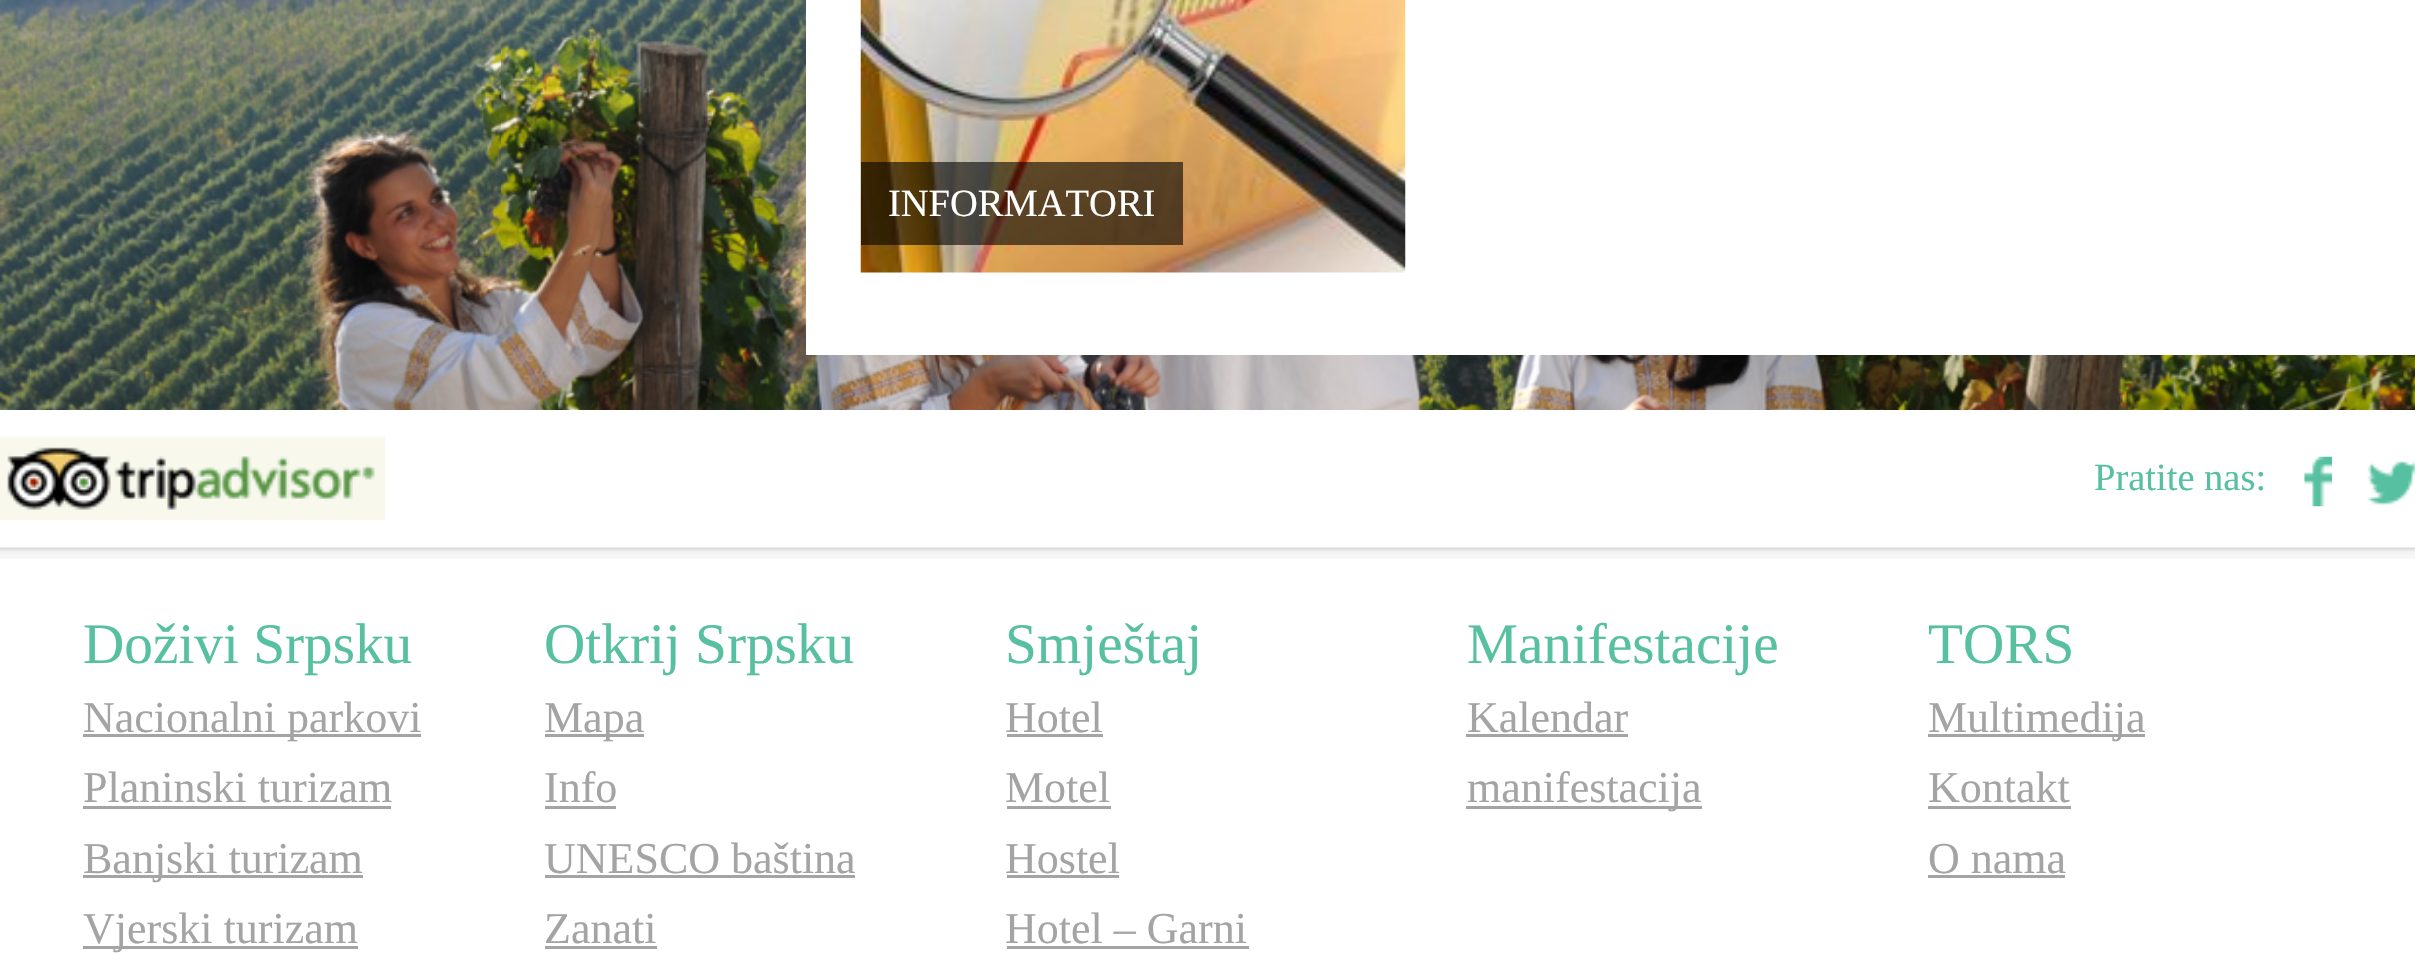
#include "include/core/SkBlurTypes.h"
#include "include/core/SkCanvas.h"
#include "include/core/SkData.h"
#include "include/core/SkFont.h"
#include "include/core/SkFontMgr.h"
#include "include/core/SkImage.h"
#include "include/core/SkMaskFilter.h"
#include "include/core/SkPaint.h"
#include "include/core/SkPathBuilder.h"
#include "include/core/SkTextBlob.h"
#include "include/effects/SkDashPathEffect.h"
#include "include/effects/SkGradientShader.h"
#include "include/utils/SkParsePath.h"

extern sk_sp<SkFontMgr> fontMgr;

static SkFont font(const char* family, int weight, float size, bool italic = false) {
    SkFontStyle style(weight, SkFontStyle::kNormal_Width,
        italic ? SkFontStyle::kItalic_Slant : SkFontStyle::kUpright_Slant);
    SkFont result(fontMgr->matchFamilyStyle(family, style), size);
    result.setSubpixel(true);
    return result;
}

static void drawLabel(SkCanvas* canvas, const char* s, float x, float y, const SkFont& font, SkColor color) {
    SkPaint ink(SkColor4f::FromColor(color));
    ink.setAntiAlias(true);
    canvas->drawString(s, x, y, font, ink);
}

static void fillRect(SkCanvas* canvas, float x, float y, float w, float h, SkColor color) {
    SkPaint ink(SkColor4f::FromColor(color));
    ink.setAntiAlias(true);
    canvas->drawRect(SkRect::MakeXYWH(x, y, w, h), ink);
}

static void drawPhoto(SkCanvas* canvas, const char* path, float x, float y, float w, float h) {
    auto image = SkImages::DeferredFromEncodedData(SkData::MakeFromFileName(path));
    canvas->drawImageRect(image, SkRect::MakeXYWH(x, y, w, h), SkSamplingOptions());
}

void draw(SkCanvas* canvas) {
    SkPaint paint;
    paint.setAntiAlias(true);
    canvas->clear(0xFFFFFFFF);
    drawPhoto(canvas, "assets/img1.png", 0, 0, 2415, 410);
    fillRect(canvas, 806, 0, 1609, 355, 0xFFFFFFFF);
    drawPhoto(canvas, "assets/img2.png", 860, 0, 546, 273);
    fillRect(canvas, 861, 162, 322, 83, 0x99000000);
    SkFont font1 = font("Liberation Serif", 400, 38.5f);
    drawLabel(canvas, "INFORMATORI", 888, 216, font1, 0xFFFFFFFF);
    drawPhoto(canvas, "assets/img3.png", 0, 437, 385, 83);
    drawLabel(canvas, "Pratite nas:", 2094, 490, font1, 0xFF57C0A0);
    drawPhoto(canvas, "assets/img4.png", 2304, 456, 28, 51);
    drawPhoto(canvas, "assets/img5.png", 2367, 461, 48, 44);
    drawPhoto(canvas, "assets/img6.png", 0, 547, 2415, 12);
    SkFont font2 = font("Liberation Serif", 400, 57.25f);
    drawLabel(canvas, "Doživi Srpsku", 83, 663, font2, 0xFF57C0A0);
    fillRect(canvas, 83, 734, 338, 3, 0xFFA4A4A4);
    SkFont font3 = font("Liberation Serif", 400, 44);
    drawLabel(canvas, "Nacionalni parkovi", 83, 732, font3, 0xFFA4A4A4);
    drawLabel(canvas, "Planinski turizam", 83, 802, font3, 0xFFA4A4A4);
    fillRect(canvas, 83, 806, 308, 3, 0xFFA4A4A4);
    fillRect(canvas, 83, 875, 280, 3, 0xFFA4A4A4);
    drawLabel(canvas, "Banjski turizam", 83, 873, font3, 0xFFA4A4A4);
    fillRect(canvas, 83, 946, 275, 3, 0xFFA4A4A4);
    drawLabel(canvas, "Vjerski turizam", 83, 943, font3, 0xFFA4A4A4);
    drawLabel(canvas, "Otkrij Srpsku", 544, 663, font2, 0xFF57C0A0);
    fillRect(canvas, 545, 734, 99, 3, 0xFFA4A4A4);
    drawLabel(canvas, "Mapa", 544, 732, font3, 0xFFA4A4A4);
    drawLabel(canvas, "Info", 544, 802, font3, 0xFFA4A4A4);
    fillRect(canvas, 545, 806, 71, 3, 0xFFA4A4A4);
    drawLabel(canvas, "UNESCO baština", 544, 873, font3, 0xFFA4A4A4);
    fillRect(canvas, 545, 875, 310, 3, 0xFFA4A4A4);
    drawLabel(canvas, "Zanati", 544, 943, font3, 0xFFA4A4A4);
    fillRect(canvas, 545, 946, 112, 3, 0xFFA4A4A4);
    drawLabel(canvas, "Smještaj", 1005, 663, font2, 0xFF57C0A0);
    drawLabel(canvas, "Hotel", 1005, 732, font3, 0xFFA4A4A4);
    fillRect(canvas, 1007, 734, 96, 3, 0xFFA4A4A4);
    drawLabel(canvas, "Motel", 1005, 802, font3, 0xFFA4A4A4);
    fillRect(canvas, 1007, 806, 104, 3, 0xFFA4A4A4);
    drawLabel(canvas, "Hostel", 1005, 873, font3, 0xFFA4A4A4);
    fillRect(canvas, 1007, 875, 112, 3, 0xFFA4A4A4);
    drawLabel(canvas, "Hotel – Garni", 1005, 943, font3, 0xFFA4A4A4);
    fillRect(canvas, 1007, 946, 242, 3, 0xFFA4A4A4);
    drawLabel(canvas, "Manifestacije", 1467, 663, font2, 0xFF57C0A0);
    drawLabel(canvas, "Kalendar", 1467, 732, font3, 0xFFA4A4A4);
    fillRect(canvas, 1466, 734, 162, 3, 0xFFA4A4A4);
    fillRect(canvas, 1466, 806, 236, 3, 0xFFA4A4A4);
    drawLabel(canvas, "manifestacija", 1467, 802, font3, 0xFFA4A4A4);
    drawLabel(canvas, "TORS", 1928, 663, font2, 0xFF57C0A0);
    fillRect(canvas, 1928, 734, 217, 3, 0xFFA4A4A4);
    drawLabel(canvas, "Multimedija", 1928, 732, font3, 0xFFA4A4A4);
    drawLabel(canvas, "Kontakt", 1928, 802, font3, 0xFFA4A4A4);
    fillRect(canvas, 1928, 806, 143, 3, 0xFFA4A4A4);
    drawLabel(canvas, "O nama", 1928, 873, font3, 0xFFA4A4A4);
    fillRect(canvas, 1928, 875, 137, 3, 0xFFA4A4A4);
}
